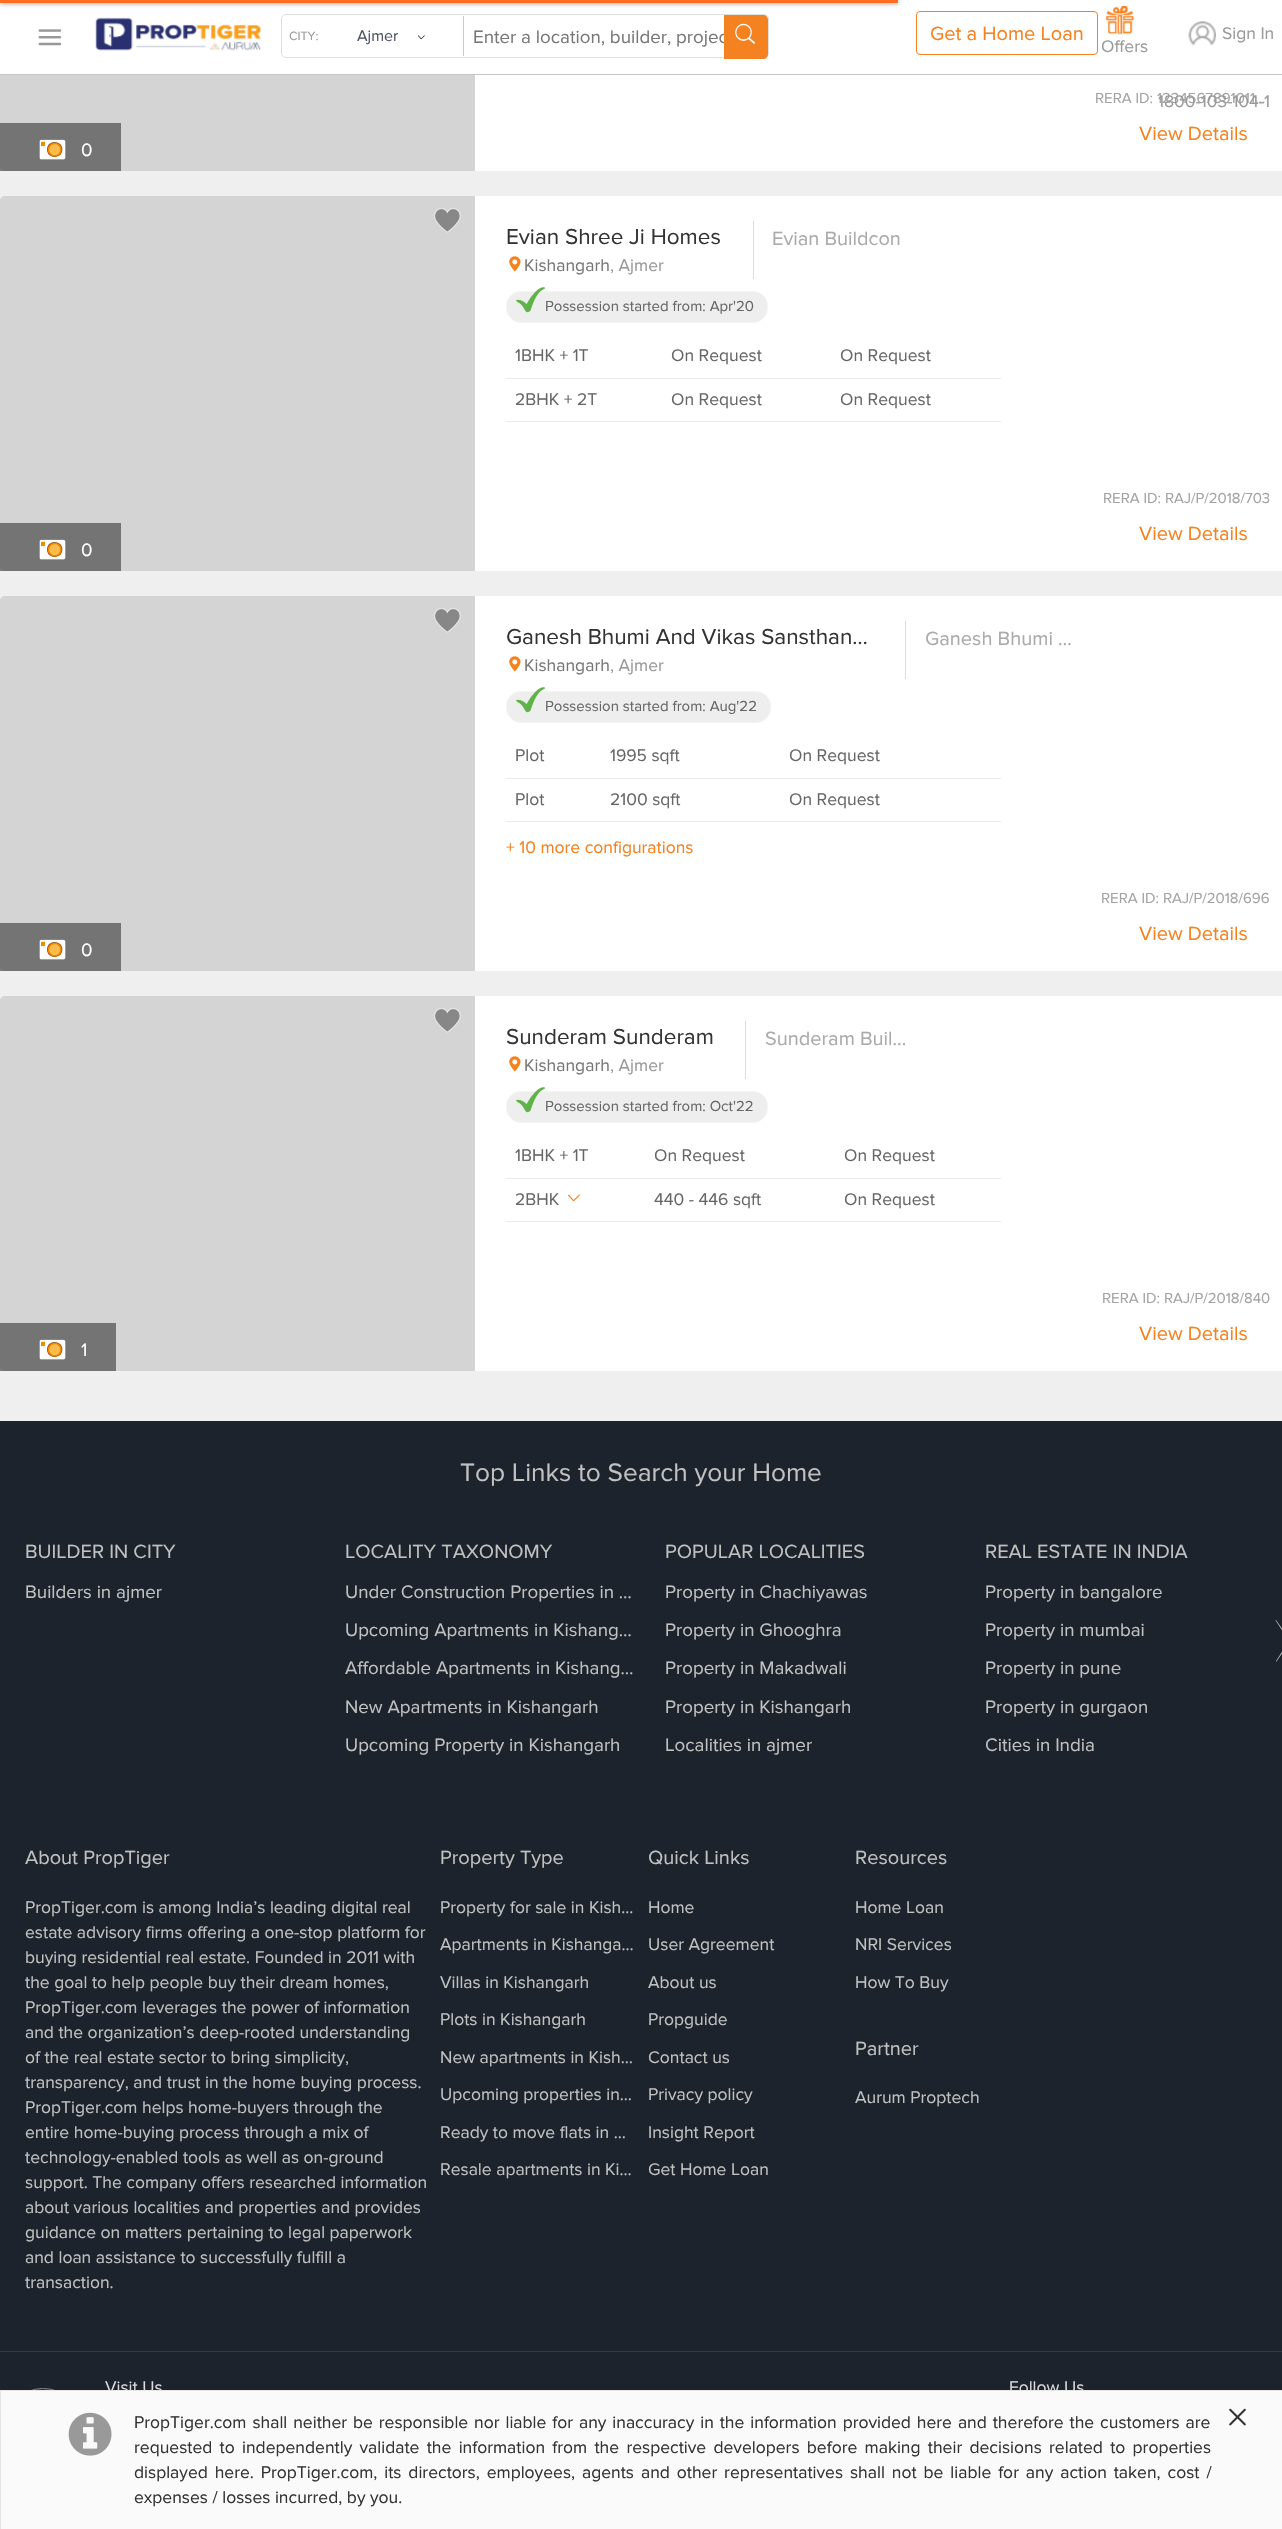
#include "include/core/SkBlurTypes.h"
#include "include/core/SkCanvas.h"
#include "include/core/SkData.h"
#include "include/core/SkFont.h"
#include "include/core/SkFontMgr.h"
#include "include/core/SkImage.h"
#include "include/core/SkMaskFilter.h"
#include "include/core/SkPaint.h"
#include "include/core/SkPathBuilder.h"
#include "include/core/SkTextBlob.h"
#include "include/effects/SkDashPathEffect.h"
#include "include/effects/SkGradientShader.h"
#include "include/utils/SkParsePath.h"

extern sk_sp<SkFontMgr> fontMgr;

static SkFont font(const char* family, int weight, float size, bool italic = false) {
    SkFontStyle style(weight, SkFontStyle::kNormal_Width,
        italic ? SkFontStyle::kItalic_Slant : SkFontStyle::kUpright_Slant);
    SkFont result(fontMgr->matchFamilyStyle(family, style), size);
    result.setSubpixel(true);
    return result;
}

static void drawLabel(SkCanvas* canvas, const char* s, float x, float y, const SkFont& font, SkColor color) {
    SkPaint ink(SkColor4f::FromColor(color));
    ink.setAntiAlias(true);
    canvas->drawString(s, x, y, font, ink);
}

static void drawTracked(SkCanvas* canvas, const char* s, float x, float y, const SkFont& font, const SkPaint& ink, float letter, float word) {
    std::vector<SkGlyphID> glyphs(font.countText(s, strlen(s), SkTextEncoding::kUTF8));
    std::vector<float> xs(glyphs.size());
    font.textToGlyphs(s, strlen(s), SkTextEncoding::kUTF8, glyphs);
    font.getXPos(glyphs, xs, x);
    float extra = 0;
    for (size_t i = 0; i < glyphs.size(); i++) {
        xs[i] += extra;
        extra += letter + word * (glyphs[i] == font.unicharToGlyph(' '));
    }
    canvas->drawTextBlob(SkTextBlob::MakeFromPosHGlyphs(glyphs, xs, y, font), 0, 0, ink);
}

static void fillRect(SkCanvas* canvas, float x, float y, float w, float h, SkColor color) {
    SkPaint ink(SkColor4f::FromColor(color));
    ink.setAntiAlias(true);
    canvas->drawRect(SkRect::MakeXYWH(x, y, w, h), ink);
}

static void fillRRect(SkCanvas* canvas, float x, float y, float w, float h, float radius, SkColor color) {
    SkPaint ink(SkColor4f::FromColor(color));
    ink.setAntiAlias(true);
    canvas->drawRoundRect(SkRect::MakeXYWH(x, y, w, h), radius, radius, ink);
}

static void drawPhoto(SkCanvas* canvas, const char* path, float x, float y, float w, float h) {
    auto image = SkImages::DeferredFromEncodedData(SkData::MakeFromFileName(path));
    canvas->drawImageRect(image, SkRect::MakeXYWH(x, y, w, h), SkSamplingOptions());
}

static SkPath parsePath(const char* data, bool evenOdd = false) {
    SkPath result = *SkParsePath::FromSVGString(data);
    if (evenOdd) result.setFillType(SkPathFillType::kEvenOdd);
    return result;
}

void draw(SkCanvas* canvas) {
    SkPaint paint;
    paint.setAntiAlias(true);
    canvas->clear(0xFFEFEFEF);
    paint.setColor(0xFFD4D4D4);
    canvas->drawPath(parsePath("M5-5H475V171H5C2 171 0 169 0 166V0C0-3 2-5 5-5Z"), paint);
    fillRect(canvas, 0, 0, 1282, 74, 0xFFFFFFFF);
    paint.setColor(0xFF777777);
    paint.setMaskFilter(SkMaskFilter::MakeBlur(kNormal_SkBlurStyle, 2.5f));
    canvas->drawRect(SkRect::MakeXYWH(0, 0, 898, 3), paint);
    paint.setMaskFilter(nullptr);
    fillRect(canvas, 0, 0, 898, 3, 0xFFFF6D1F);
    fillRect(canvas, 0, 74, 1282, 1, 0xFFC6C6C6);
    drawPhoto(canvas, "assets/img1.png", 38, 29, 24, 17);
    drawPhoto(canvas, "assets/img2.png", 95, 17, 167, 34);
    paint.setStroke(true);
    paint.setStrokeWidth(1);
    paint.setColor(0xFFDFDFDF);
    canvas->drawRoundRect(SkRect::MakeXYWH(281.5f, 14.5f, 487, 43), 4.5f, 4.5f, paint);
    SkFont font1 = font("Proxima Nova", 400, 12.5f);
    drawLabel(canvas, "CITY:", 289, 40, font1, 0xFF999999);
    fillRect(canvas, 463, 16, 1, 40, 0xFFCCCCCC);
    SkFont font2 = font("Proxima Nova", 400, 16);
    drawLabel(canvas, "Ajmer", 357, 41, font2, 0xFF4E5665);
    drawPhoto(canvas, "assets/img3.png", 418, 35, 7, 5);
    SkFont font3 = font("Proxima Nova", 400, 18.75f);
    drawLabel(canvas, "Enter a location, builder, projec", 473, 43, font3, 0xFF777777);
    paint.setStroke(false);
    paint.setColor(0xFFF58220);
    canvas->drawPath(parsePath("M724 15H763C766 15 768 17 768 20V54C768 57 766 59 763 59H724Z"), paint);
    drawPhoto(canvas, "assets/img4.png", 735, 23, 20, 21);
    paint.setStroke(true);
    canvas->drawRoundRect(SkRect::MakeXYWH(916.5f, 11.5f, 181, 43), 3.5f, 3.5f, paint);
    SkFont font4 = font("Proxima Nova", 400, 20);
    drawLabel(canvas, "Get a Home Loan", 930, 40, font4, 0xFFF58220);
    drawPhoto(canvas, "assets/img5.png", 1188, 21, 28, 25);
    SkFont font5 = font("Proxima Nova", 400, 17.5f);
    drawLabel(canvas, "Sign In", 1222, 39, font5, 0xFF999999);
    drawPhoto(canvas, "assets/img6.png", 1106, 6, 29, 29);
    drawLabel(canvas, "Offers", 1101, 52, font5, 0xFF999999);
    fillRect(canvas, 475, 75, 807, 96, 0xFFFFFFFF);
    SkFont font6 = font("Proxima Nova", 400, 15);
    drawLabel(canvas, "RERA ID: 1234567891011…", 1095, 103, font6, 0xFFA3A3A3);
    drawLabel(canvas, "1800-103-104-1", 1158, 107, font5, 0xFF999999);
    drawLabel(canvas, "View Details", 1139, 140, font4, 0xFFF58220);
    fillRect(canvas, 0, 123, 121, 48, 0x99333333);
    drawPhoto(canvas, "assets/img7.png", 39, 139, 27, 21);
    fillRect(canvas, 41, 142, 4, 4, 0xFFF28700);
    paint.setStroke(false);
    paint.setColor(0xFF8A4F21);
    canvas->drawPath(parsePath("M54.5 157C44.5 157 44.5 142 54.5 142C65 142 65 157 54.5 157Z"), paint);
    drawPhoto(canvas, "assets/img8.png", 47, 142, 15, 15);
    drawLabel(canvas, "0", 81, 156, font3, 0xFFFFFFFF);
    drawPhoto(canvas, "assets/img9.png", 49, 144, 12, 11);
    fillRect(canvas, 475, 196, 807, 375, 0xFFFFFFFF);
    fillRect(canvas, 753, 221, 1, 58, 0xFFDDDDDD);
    SkFont font7 = font("Proxima Nova", 400, 22.5f);
    drawLabel(canvas, "Evian Shree Ji Homes", 506, 244, font7, 0xFF333333);
    drawPhoto(canvas, "assets/img10.png", 509, 256, 12, 16);
    drawLabel(canvas, "Kishangarh", 524, 271, font5, 0xFF777777);
    drawLabel(canvas, ", Ajmer", 610, 271, font5, 0xFF999999);
    drawLabel(canvas, "Evian Buildcon", 772, 245, font4, 0xFFAAAAAA);
    paint.setColor(0xFFEEEEEE);
    canvas->drawRoundRect(SkRect::MakeXYWH(506.5f, 291.5f, 261, 31), 14.5f, 14.5f, paint);
    paint.setStroke(true);
    paint.setColor(0xFFF4F4F4);
    canvas->drawRoundRect(SkRect::MakeXYWH(506.5f, 291.5f, 261, 31), 14.5f, 14.5f, paint);
    drawPhoto(canvas, "assets/img11.png", 516, 287, 29, 26);
    drawLabel(canvas, "Possession started from: Apr'20", 545, 311, font6, 0xFF666666);
    fillRect(canvas, 506, 378, 495, 1, 0xFFEBEBEB);
    drawLabel(canvas, "1BHK + 1T", 515, 361, font5, 0xFF666666);
    drawLabel(canvas, "On Request", 671, 361, font5, 0xFF666666);
    drawLabel(canvas, "On Request", 840, 361, font5, 0xFF666666);
    fillRect(canvas, 506, 421, 495, 1, 0xFFEBEBEB);
    drawLabel(canvas, "2BHK + 2T", 515, 405, font5, 0xFF666666);
    drawLabel(canvas, "On Request", 671, 405, font5, 0xFF666666);
    drawLabel(canvas, "On Request", 840, 405, font5, 0xFF666666);
    drawLabel(canvas, "RERA ID: RAJ/P/2018/703", 1103, 503, font6, 0xFFA3A3A3);
    drawLabel(canvas, "View Details", 1139, 540, font4, 0xFFF58220);
    paint.setStroke(false);
    paint.setColor(0xFFD4D4D4);
    canvas->drawPath(parsePath("M5 196H475V571H5C2 571 0 569 0 566V201C0 198 2 196 5 196Z"), paint);
    drawPhoto(canvas, "assets/img12.png", 434, 208, 26, 24);
    drawPhoto(canvas, "assets/img13.png", 434, 208, 27, 25);
    fillRect(canvas, 0, 523, 121, 48, 0x99333333);
    drawPhoto(canvas, "assets/img7.png", 39, 539, 27, 21);
    fillRect(canvas, 41, 542, 4, 4, 0xFFF28700);
    paint.setColor(0xFF8A4F21);
    canvas->drawPath(parsePath("M54.5 557C44.5 557 44.5 542 54.5 542C65 542 65 557 54.5 557Z"), paint);
    drawPhoto(canvas, "assets/img8.png", 47, 542, 15, 15);
    drawLabel(canvas, "0", 81, 556, font3, 0xFFFFFFFF);
    drawPhoto(canvas, "assets/img9.png", 49, 544, 12, 11);
    fillRect(canvas, 475, 596, 807, 375, 0xFFFFFFFF);
    fillRect(canvas, 905, 621, 1, 58, 0xFFDDDDDD);
    drawLabel(canvas, "Ganesh Bhumi And Vikas Sansthan…", 506, 644, font7, 0xFF333333);
    drawPhoto(canvas, "assets/img10.png", 509, 656, 12, 16);
    drawLabel(canvas, "Kishangarh", 524, 671, font5, 0xFF777777);
    drawLabel(canvas, ", Ajmer", 610, 671, font5, 0xFF999999);
    drawLabel(canvas, "Ganesh Bhumi …", 925, 645, font4, 0xFFAAAAAA);
    paint.setColor(0xFFEEEEEE);
    canvas->drawRoundRect(SkRect::MakeXYWH(506.5f, 691.5f, 264, 31), 14.5f, 14.5f, paint);
    paint.setStroke(true);
    paint.setColor(0xFFF4F4F4);
    canvas->drawRoundRect(SkRect::MakeXYWH(506.5f, 691.5f, 264, 31), 14.5f, 14.5f, paint);
    drawPhoto(canvas, "assets/img11.png", 516, 687, 29, 26);
    drawLabel(canvas, "Possession started from: Aug'22", 545, 711, font6, 0xFF666666);
    fillRect(canvas, 506, 778, 495, 1, 0xFFEBEBEB);
    drawLabel(canvas, "Plot", 515, 761, font5, 0xFF666666);
    drawLabel(canvas, "1995 sqft", 610, 761, font5, 0xFF666666);
    drawLabel(canvas, "On Request", 789, 761, font5, 0xFF666666);
    fillRect(canvas, 506, 821, 495, 1, 0xFFEBEBEB);
    drawLabel(canvas, "Plot", 515, 805, font5, 0xFF666666);
    drawLabel(canvas, "2100 sqft", 610, 805, font5, 0xFF666666);
    drawLabel(canvas, "On Request", 789, 805, font5, 0xFF666666);
    drawLabel(canvas, "+ 10 more configurations", 506, 853, font5, 0xFFF58220);
    drawLabel(canvas, "RERA ID: RAJ/P/2018/696", 1101, 903, font6, 0xFFA3A3A3);
    drawLabel(canvas, "View Details", 1139, 940, font4, 0xFFF58220);
    paint.setStroke(false);
    paint.setColor(0xFFD4D4D4);
    canvas->drawPath(parsePath("M5 596H475V971H5C2 971 0 969 0 966V601C0 598 2 596 5 596Z"), paint);
    drawPhoto(canvas, "assets/img12.png", 434, 608, 26, 24);
    drawPhoto(canvas, "assets/img13.png", 434, 608, 27, 25);
    fillRect(canvas, 0, 923, 121, 48, 0x99333333);
    drawPhoto(canvas, "assets/img7.png", 39, 939, 27, 21);
    fillRect(canvas, 41, 942, 4, 4, 0xFFF28700);
    paint.setColor(0xFF8A4F21);
    canvas->drawPath(parsePath("M54.5 957C44.5 957 44.5 942 54.5 942C65 942 65 957 54.5 957Z"), paint);
    drawPhoto(canvas, "assets/img8.png", 47, 942, 15, 15);
    drawLabel(canvas, "0", 81, 956, font3, 0xFFFFFFFF);
    drawPhoto(canvas, "assets/img9.png", 49, 944, 12, 11);
    fillRect(canvas, 475, 996, 807, 375, 0xFFFFFFFF);
    fillRect(canvas, 745, 1021, 1, 58, 0xFFDDDDDD);
    drawLabel(canvas, "Sunderam Sunderam", 506, 1044, font7, 0xFF333333);
    drawPhoto(canvas, "assets/img10.png", 509, 1056, 12, 16);
    drawLabel(canvas, "Kishangarh", 524, 1071, font5, 0xFF777777);
    drawLabel(canvas, ", Ajmer", 610, 1071, font5, 0xFF999999);
    drawLabel(canvas, "Sunderam Buil…", 765, 1045, font4, 0xFFAAAAAA);
    paint.setColor(0xFFEEEEEE);
    canvas->drawRoundRect(SkRect::MakeXYWH(506.5f, 1091.5f, 261, 31), 14.5f, 14.5f, paint);
    paint.setStroke(true);
    paint.setColor(0xFFF4F4F4);
    canvas->drawRoundRect(SkRect::MakeXYWH(506.5f, 1091.5f, 261, 31), 14.5f, 14.5f, paint);
    drawPhoto(canvas, "assets/img11.png", 516, 1087, 29, 26);
    drawLabel(canvas, "Possession started from: Oct'22", 545, 1111, font6, 0xFF666666);
    fillRect(canvas, 506, 1178, 495, 1, 0xFFEBEBEB);
    drawLabel(canvas, "1BHK + 1T", 515, 1161, font5, 0xFF666666);
    drawLabel(canvas, "On Request", 654, 1161, font5, 0xFF666666);
    drawLabel(canvas, "On Request", 844, 1161, font5, 0xFF666666);
    fillRect(canvas, 506, 1221, 495, 1, 0xFFEBEBEB);
    drawLabel(canvas, "2BHK", 515, 1205, font5, 0xFF666666);
    drawPhoto(canvas, "assets/img14.png", 568, 1194, 12, 8);
    drawLabel(canvas, "440 - 446 sqft", 654, 1205, font5, 0xFF666666);
    drawLabel(canvas, "On Request", 844, 1205, font5, 0xFF666666);
    drawLabel(canvas, "RERA ID: RAJ/P/2018/840", 1102, 1303, font6, 0xFFA3A3A3);
    drawLabel(canvas, "View Details", 1139, 1340, font4, 0xFFF58220);
    paint.setStroke(false);
    paint.setColor(0xFFD4D4D4);
    canvas->drawPath(parsePath("M5 996H475V1371H5C2 1371 0 1369 0 1366V1001C0 998 2 996 5 996Z"), paint);
    drawPhoto(canvas, "assets/img12.png", 434, 1008, 26, 24);
    drawPhoto(canvas, "assets/img13.png", 434, 1008, 27, 25);
    fillRect(canvas, 0, 1323, 116, 48, 0x99333333);
    drawPhoto(canvas, "assets/img7.png", 39, 1339, 27, 21);
    fillRect(canvas, 41, 1342, 4, 4, 0xFFF28700);
    paint.setColor(0xFF8A4F21);
    canvas->drawPath(parsePath("M54.5 1357C44.5 1357 44.5 1342 54.5 1342C65 1342 65 1357 54.5 1357Z"), paint);
    drawPhoto(canvas, "assets/img8.png", 47, 1342, 15, 15);
    drawLabel(canvas, "1", 81, 1356, font3, 0xFFFFFFFF);
    drawPhoto(canvas, "assets/img9.png", 49, 1344, 12, 11);
    fillRect(canvas, 0, 1421, 1282, 969, 0xFF1C232D);
    SkFont font8 = font("Proxima Nova", 400, 26.25f);
    drawLabel(canvas, "Top Links to Search your Home", 460, 1481, font8, 0xFFC1C1C1);
    drawLabel(canvas, "BUILDER IN CITY", 25, 1558, font4, 0xFFC1C1C1);
    drawLabel(canvas, "Builders in ajmer", 25, 1598, font3, 0xFFC1C1C1);
    drawLabel(canvas, "LOCALITY TAXONOMY", 345, 1558, font4, 0xFFC1C1C1);
    drawLabel(canvas, "Under Construction Properties in …", 345, 1598, font3, 0xFFC1C1C1);
    drawLabel(canvas, "Upcoming Apartments in Kishang…", 345, 1636, font3, 0xFFC1C1C1);
    drawLabel(canvas, "Affordable Apartments in Kishang…", 345, 1674, font3, 0xFFC1C1C1);
    drawLabel(canvas, "New Apartments in Kishangarh", 345, 1713, font3, 0xFFC1C1C1);
    drawLabel(canvas, "Upcoming Property in Kishangarh", 345, 1751, font3, 0xFFC1C1C1);
    drawLabel(canvas, "POPULAR LOCALITIES", 665, 1558, font4, 0xFFC1C1C1);
    drawLabel(canvas, "Property in Chachiyawas", 665, 1598, font3, 0xFFC1C1C1);
    drawLabel(canvas, "Property in Ghooghra", 665, 1636, font3, 0xFFC1C1C1);
    drawLabel(canvas, "Property in Makadwali", 665, 1674, font3, 0xFFC1C1C1);
    drawLabel(canvas, "Property in Kishangarh", 665, 1713, font3, 0xFFC1C1C1);
    drawLabel(canvas, "Localities in ajmer", 665, 1751, font3, 0xFFC1C1C1);
    drawLabel(canvas, "REAL ESTATE IN INDIA", 985, 1558, font4, 0xFFC1C1C1);
    drawLabel(canvas, "Property in bangalore", 985, 1598, font3, 0xFFC1C1C1);
    drawLabel(canvas, "Property in mumbai", 985, 1636, font3, 0xFFC1C1C1);
    drawLabel(canvas, "Property in pune", 985, 1674, font3, 0xFFC1C1C1);
    drawLabel(canvas, "Property in gurgaon", 985, 1713, font3, 0xFFC1C1C1);
    drawLabel(canvas, "Cities in India", 985, 1751, font3, 0xFFC1C1C1);
    paint.setColor(0xFFC1C1C1);
    canvas->drawPath(parsePath("M1276 1662V1661L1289 1641L1276 1621C1275 1620 1276 1620 1276 1620L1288 1637C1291 1642 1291 1640 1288 1645Z"), paint);
    drawLabel(canvas, "About PropTiger", 25, 1864, font4, 0xFFC1C1C1);
    drawLabel(canvas, "PropTiger.com is among India’s leading digital real", 25, 1913, font5, 0xFFC1C1C1);
    drawLabel(canvas, "estate advisory firms offering a one-stop platform for", 25, 1938, font5, 0xFFC1C1C1);
    drawLabel(canvas, "buying residential real estate. Founded in 2011 with", 25, 1963, font5, 0xFFC1C1C1);
    drawLabel(canvas, "the goal to help people buy their dream homes,", 25, 1988, font5, 0xFFC1C1C1);
    drawLabel(canvas, "PropTiger.com leverages the power of information", 25, 2013, font5, 0xFFC1C1C1);
    drawLabel(canvas, "and the organization’s deep-rooted understanding", 25, 2038, font5, 0xFFC1C1C1);
    drawLabel(canvas, "of the real estate sector to bring simplicity,", 25, 2063, font5, 0xFFC1C1C1);
    drawLabel(canvas, "transparency, and trust in the home buying process.", 25, 2088, font5, 0xFFC1C1C1);
    drawLabel(canvas, "PropTiger.com helps home-buyers through the", 25, 2113, font5, 0xFFC1C1C1);
    drawLabel(canvas, "entire home-buying process through a mix of", 25, 2138, font5, 0xFFC1C1C1);
    drawLabel(canvas, "technology-enabled tools as well as on-ground", 25, 2163, font5, 0xFFC1C1C1);
    drawLabel(canvas, "support. The company offers researched information", 25, 2188, font5, 0xFFC1C1C1);
    drawLabel(canvas, "about various localities and properties and provides", 25, 2213, font5, 0xFFC1C1C1);
    drawLabel(canvas, "guidance on matters pertaining to legal paperwork", 25, 2238, font5, 0xFFC1C1C1);
    drawLabel(canvas, "and loan assistance to successfully fulfill a", 25, 2263, font5, 0xFFC1C1C1);
    drawLabel(canvas, "transaction.", 25, 2288, font5, 0xFFC1C1C1);
    drawLabel(canvas, "Property Type", 440, 1864, font4, 0xFFC1C1C1);
    drawLabel(canvas, "Property for sale in Kish…", 440, 1913, font5, 0xFFC1C1C1);
    drawLabel(canvas, "Apartments in Kishanga…", 440, 1950, font5, 0xFFC1C1C1);
    drawLabel(canvas, "Villas in Kishangarh", 440, 1988, font5, 0xFFC1C1C1);
    drawLabel(canvas, "Plots in Kishangarh", 440, 2025, font5, 0xFFC1C1C1);
    drawLabel(canvas, "New apartments in Kish…", 440, 2063, font5, 0xFFC1C1C1);
    drawLabel(canvas, "Upcoming properties in…", 440, 2100, font5, 0xFFC1C1C1);
    drawLabel(canvas, "Ready to move flats in …", 440, 2138, font5, 0xFFC1C1C1);
    drawLabel(canvas, "Resale apartments in Ki…", 440, 2175, font5, 0xFFC1C1C1);
    drawLabel(canvas, "Quick Links", 648, 1864, font4, 0xFFC1C1C1);
    drawLabel(canvas, "Home", 648, 1913, font5, 0xFFC1C1C1);
    drawLabel(canvas, "User Agreement", 648, 1950, font5, 0xFFC1C1C1);
    drawLabel(canvas, "About us", 648, 1988, font5, 0xFFC1C1C1);
    drawLabel(canvas, "Propguide", 648, 2025, font5, 0xFFC1C1C1);
    drawLabel(canvas, "Contact us", 648, 2063, font5, 0xFFC1C1C1);
    drawLabel(canvas, "Privacy policy", 648, 2100, font5, 0xFFC1C1C1);
    drawLabel(canvas, "Insight Report", 648, 2138, font5, 0xFFC1C1C1);
    drawLabel(canvas, "Get Home Loan", 648, 2175, font5, 0xFFC1C1C1);
    drawLabel(canvas, "Resources", 855, 1864, font4, 0xFFC1C1C1);
    drawLabel(canvas, "Home Loan", 855, 1913, font5, 0xFFC1C1C1);
    drawLabel(canvas, "NRI Services", 855, 1950, font5, 0xFFC1C1C1);
    drawLabel(canvas, "How To Buy", 855, 1988, font5, 0xFFC1C1C1);
    drawLabel(canvas, "Partner", 855, 2055, font4, 0xFFC1C1C1);
    drawLabel(canvas, "Aurum Proptech", 855, 2103, font5, 0xFFC1C1C1);
    fillRect(canvas, 0, 2351, 1282, 1, 0xFF393939);
    fillRRect(canvas, 6, 2388, 74, 73, 36.5f, 0xFF222934);
    paint.setStroke(true);
    paint.setColor(0xCC979797);
    canvas->drawRoundRect(SkRect::MakeXYWH(6.5f, 2388.5f, 73, 72), 36, 36, paint);
    drawLabel(canvas, "Visit Us", 105, 2393, font5, 0xFFDADADA);
    drawLabel(canvas, "Follow Us", 1009, 2393, font5, 0xFFDADADA);
    paint.setStroke(false);
    paint.setColor(0xFFFAFAFA);
    canvas->drawRect(SkRect::MakeXYWH(0.5f, 2390.5f, 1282, 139), paint);
    paint.setStroke(true);
    paint.setColor(0xFFE6E6E6);
    canvas->drawRect(SkRect::MakeXYWH(0.5f, 2390.5f, 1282, 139), paint);
    drawPhoto(canvas, "assets/img15.png", 68, 2412, 44, 44);
    paint.setStroke(false);
    paint.setColor(0xFF333333);
    drawTracked(canvas, "PropTiger.com shall neither be responsible nor liable for any inaccuracy in the information provided here and therefore the customers are", 134, 2428, font5, paint, 0, 1.4f);
    drawTracked(canvas, "requested to independently validate the information from the respective developers before making their decisions related to properties", 134, 2453, font5, paint, 0, 2.75f);
    drawTracked(canvas, "displayed here. PropTiger.com, its directors, employees, agents and other representatives shall not be liable for any action taken, cost /", 134, 2478, font5, paint, 0, 2.4f);
    drawLabel(canvas, "expenses / losses incurred, by you.", 134, 2503, font5, 0xFF333333);
    drawPhoto(canvas, "assets/img16.png", 1229, 2408, 17, 18);
}
